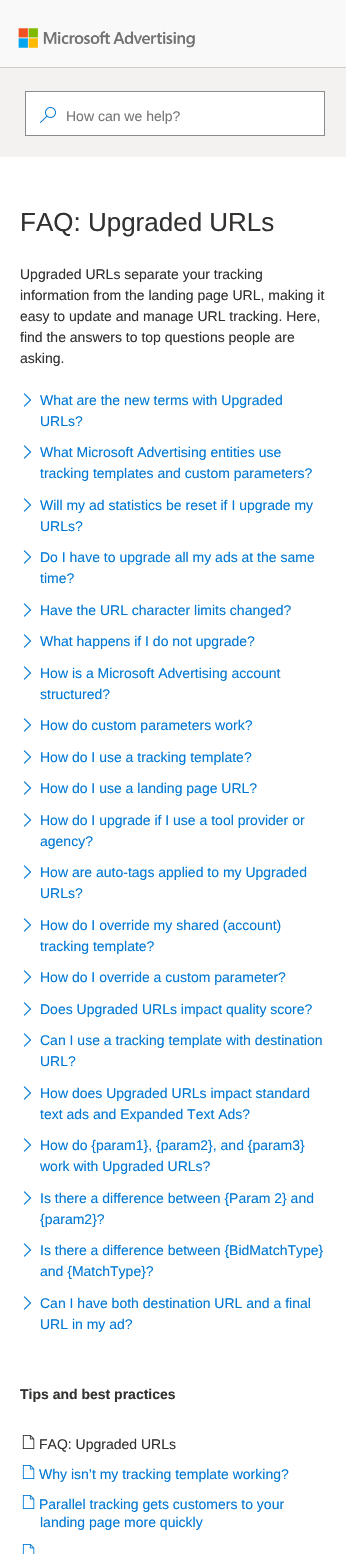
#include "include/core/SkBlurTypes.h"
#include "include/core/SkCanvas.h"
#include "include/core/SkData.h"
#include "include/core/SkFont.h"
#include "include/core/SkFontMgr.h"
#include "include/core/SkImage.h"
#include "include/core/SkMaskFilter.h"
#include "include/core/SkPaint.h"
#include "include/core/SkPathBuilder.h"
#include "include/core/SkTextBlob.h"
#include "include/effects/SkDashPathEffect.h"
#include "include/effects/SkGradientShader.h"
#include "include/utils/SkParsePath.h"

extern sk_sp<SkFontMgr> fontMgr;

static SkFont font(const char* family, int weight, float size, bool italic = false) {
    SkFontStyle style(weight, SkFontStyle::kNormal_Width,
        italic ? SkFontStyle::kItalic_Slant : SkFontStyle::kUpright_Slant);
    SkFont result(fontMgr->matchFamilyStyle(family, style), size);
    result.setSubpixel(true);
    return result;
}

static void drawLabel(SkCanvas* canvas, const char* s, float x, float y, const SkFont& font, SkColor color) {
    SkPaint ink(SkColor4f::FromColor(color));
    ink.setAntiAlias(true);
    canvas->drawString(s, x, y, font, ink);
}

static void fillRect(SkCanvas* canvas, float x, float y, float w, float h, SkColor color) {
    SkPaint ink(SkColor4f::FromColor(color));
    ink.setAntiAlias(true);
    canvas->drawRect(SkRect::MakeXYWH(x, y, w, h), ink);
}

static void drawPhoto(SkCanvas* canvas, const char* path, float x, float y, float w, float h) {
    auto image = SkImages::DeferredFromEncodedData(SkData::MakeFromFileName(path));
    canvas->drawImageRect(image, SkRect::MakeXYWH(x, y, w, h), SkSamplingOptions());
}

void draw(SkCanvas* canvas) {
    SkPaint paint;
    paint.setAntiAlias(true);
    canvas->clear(0xFFFFFFFF);
    fillRect(canvas, 0, 0, 346, 67, 0xFFF9F9F9);
    fillRect(canvas, 0, 67, 346, 1, 0xFFCCCCCC);
    drawPhoto(canvas, "assets/img1.png", 18, 28, 177, 20);
    fillRect(canvas, 0, 68, 346, 89, 0xFFF3F2F1);
    paint.setColor(0xFFFFFFFF);
    canvas->drawRect(SkRect::MakeXYWH(25.5f, 91.5f, 299, 44), paint);
    paint.setStroke(true);
    paint.setStrokeWidth(1);
    paint.setColor(0xFF8B8B8B);
    canvas->drawRect(SkRect::MakeXYWH(25.5f, 91.5f, 299, 44), paint);
    drawPhoto(canvas, "assets/img2.png", 40, 107, 16, 16);
    SkFont font1 = font("Liberation Sans", 400, 14);
    drawLabel(canvas, "How can we help?", 66, 121, font1, 0xFF767676);
    SkFont font2 = font("Liberation Sans", 400, 26);
    drawLabel(canvas, "FAQ: Upgraded URLs", 20, 231, font2, 0xFF323130);
    drawLabel(canvas, "Upgraded URLs separate your tracking", 20, 279, font1, 0xFF323130);
    drawLabel(canvas, "information from the landing page URL, making it", 20, 300, font1, 0xFF323130);
    drawLabel(canvas, "easy to update and manage URL tracking. Here,", 20, 321, font1, 0xFF323130);
    drawLabel(canvas, "find the answers to top questions people are", 20, 342, font1, 0xFF323130);
    drawLabel(canvas, "asking.", 20, 363, font1, 0xFF323130);
    drawPhoto(canvas, "assets/img3.png", 23, 393, 9, 14);
    drawLabel(canvas, "What are the new terms with Upgraded", 40, 405, font1, 0xFF0078D4);
    drawLabel(canvas, "URLs?", 40, 426, font1, 0xFF0078D4);
    drawPhoto(canvas, "assets/img3.png", 23, 445, 9, 14);
    drawLabel(canvas, "What Microsoft Advertising entities use", 40, 457, font1, 0xFF0078D4);
    drawLabel(canvas, "tracking templates and custom parameters?", 40, 478, font1, 0xFF0078D4);
    drawPhoto(canvas, "assets/img3.png", 23, 498, 9, 14);
    drawLabel(canvas, "Will my ad statistics be reset if I upgrade my", 40, 510, font1, 0xFF0078D4);
    drawLabel(canvas, "URLs?", 40, 531, font1, 0xFF0078D4);
    drawPhoto(canvas, "assets/img3.png", 23, 550, 9, 14);
    drawLabel(canvas, "Do I have to upgrade all my ads at the same", 40, 562, font1, 0xFF0078D4);
    drawLabel(canvas, "time?", 40, 583, font1, 0xFF0078D4);
    drawPhoto(canvas, "assets/img3.png", 23, 603, 9, 14);
    drawLabel(canvas, "Have the URL character limits changed?", 40, 615, font1, 0xFF0078D4);
    drawPhoto(canvas, "assets/img3.png", 23, 634, 9, 14);
    drawLabel(canvas, "What happens if I do not upgrade?", 40, 646, font1, 0xFF0078D4);
    drawPhoto(canvas, "assets/img3.png", 23, 666, 9, 14);
    drawLabel(canvas, "How is a Microsoft Advertising account", 40, 678, font1, 0xFF0078D4);
    drawLabel(canvas, "structured?", 40, 699, font1, 0xFF0078D4);
    drawPhoto(canvas, "assets/img3.png", 23, 718, 9, 14);
    drawLabel(canvas, "How do custom parameters work?", 40, 730, font1, 0xFF0078D4);
    drawPhoto(canvas, "assets/img3.png", 23, 750, 9, 14);
    drawLabel(canvas, "How do I use a tracking template?", 40, 762, font1, 0xFF0078D4);
    drawPhoto(canvas, "assets/img3.png", 23, 781, 9, 14);
    drawLabel(canvas, "How do I use a landing page URL?", 40, 793, font1, 0xFF0078D4);
    drawPhoto(canvas, "assets/img3.png", 23, 813, 9, 14);
    drawLabel(canvas, "How do I upgrade if I use a tool provider or", 40, 825, font1, 0xFF0078D4);
    drawLabel(canvas, "agency?", 40, 846, font1, 0xFF0078D4);
    drawPhoto(canvas, "assets/img3.png", 23, 865, 9, 14);
    drawLabel(canvas, "How are auto-tags applied to my Upgraded", 40, 877, font1, 0xFF0078D4);
    drawLabel(canvas, "URLs?", 40, 898, font1, 0xFF0078D4);
    drawPhoto(canvas, "assets/img3.png", 23, 918, 9, 14);
    drawLabel(canvas, "How do I override my shared (account)", 40, 930, font1, 0xFF0078D4);
    drawLabel(canvas, "tracking template?", 40, 951, font1, 0xFF0078D4);
    drawPhoto(canvas, "assets/img3.png", 23, 970, 9, 14);
    drawLabel(canvas, "How do I override a custom parameter?", 40, 982, font1, 0xFF0078D4);
    drawPhoto(canvas, "assets/img3.png", 23, 1002, 9, 14);
    drawLabel(canvas, "Does Upgraded URLs impact quality score?", 40, 1014, font1, 0xFF0078D4);
    drawPhoto(canvas, "assets/img3.png", 23, 1033, 9, 14);
    drawLabel(canvas, "Can I use a tracking template with destination", 40, 1045, font1, 0xFF0078D4);
    drawLabel(canvas, "URL?", 40, 1066, font1, 0xFF0078D4);
    drawPhoto(canvas, "assets/img3.png", 23, 1086, 9, 14);
    drawLabel(canvas, "How does Upgraded URLs impact standard", 40, 1098, font1, 0xFF0078D4);
    drawLabel(canvas, "text ads and Expanded Text Ads?", 40, 1119, font1, 0xFF0078D4);
    drawPhoto(canvas, "assets/img3.png", 23, 1138, 9, 14);
    drawLabel(canvas, "How do {param1}, {param2}, and {param3}", 40, 1150, font1, 0xFF0078D4);
    drawLabel(canvas, "work with Upgraded URLs?", 40, 1171, font1, 0xFF0078D4);
    drawPhoto(canvas, "assets/img3.png", 23, 1191, 9, 14);
    drawLabel(canvas, "Is there a difference between {Param 2} and", 40, 1203, font1, 0xFF0078D4);
    drawLabel(canvas, "{param2}?", 40, 1224, font1, 0xFF0078D4);
    drawPhoto(canvas, "assets/img3.png", 23, 1243, 9, 14);
    drawLabel(canvas, "Is there a difference between {BidMatchType}", 40, 1255, font1, 0xFF0078D4);
    drawLabel(canvas, "and {MatchType}?", 40, 1276, font1, 0xFF0078D4);
    drawPhoto(canvas, "assets/img3.png", 23, 1296, 9, 14);
    drawLabel(canvas, "Can I have both destination URL and a final", 40, 1308, font1, 0xFF0078D4);
    drawLabel(canvas, "URL in my ad?", 40, 1329, font1, 0xFF0078D4);
    SkFont font3 = font("Liberation Sans", 700, 14);
    drawLabel(canvas, "Tips and best practices", 20, 1399, font3, 0xFF323130);
    drawPhoto(canvas, "assets/img4.png", 22, 1435, 13, 14);
    drawLabel(canvas, "FAQ: Upgraded URLs", 39, 1449, font1, 0xFF323130);
    drawPhoto(canvas, "assets/img5.png", 22, 1465, 13, 14);
    drawLabel(canvas, "Why isn’t my tracking template working?", 39, 1479, font1, 0xFF0078D4);
    drawPhoto(canvas, "assets/img5.png", 22, 1495, 13, 14);
    drawLabel(canvas, "Parallel tracking gets customers to your", 39, 1509, font1, 0xFF0078D4);
    drawLabel(canvas, "landing page more quickly", 40, 1527, font1, 0xFF0078D4);
    drawPhoto(canvas, "assets/img6.png", 22, 1544, 13, 10);
}
